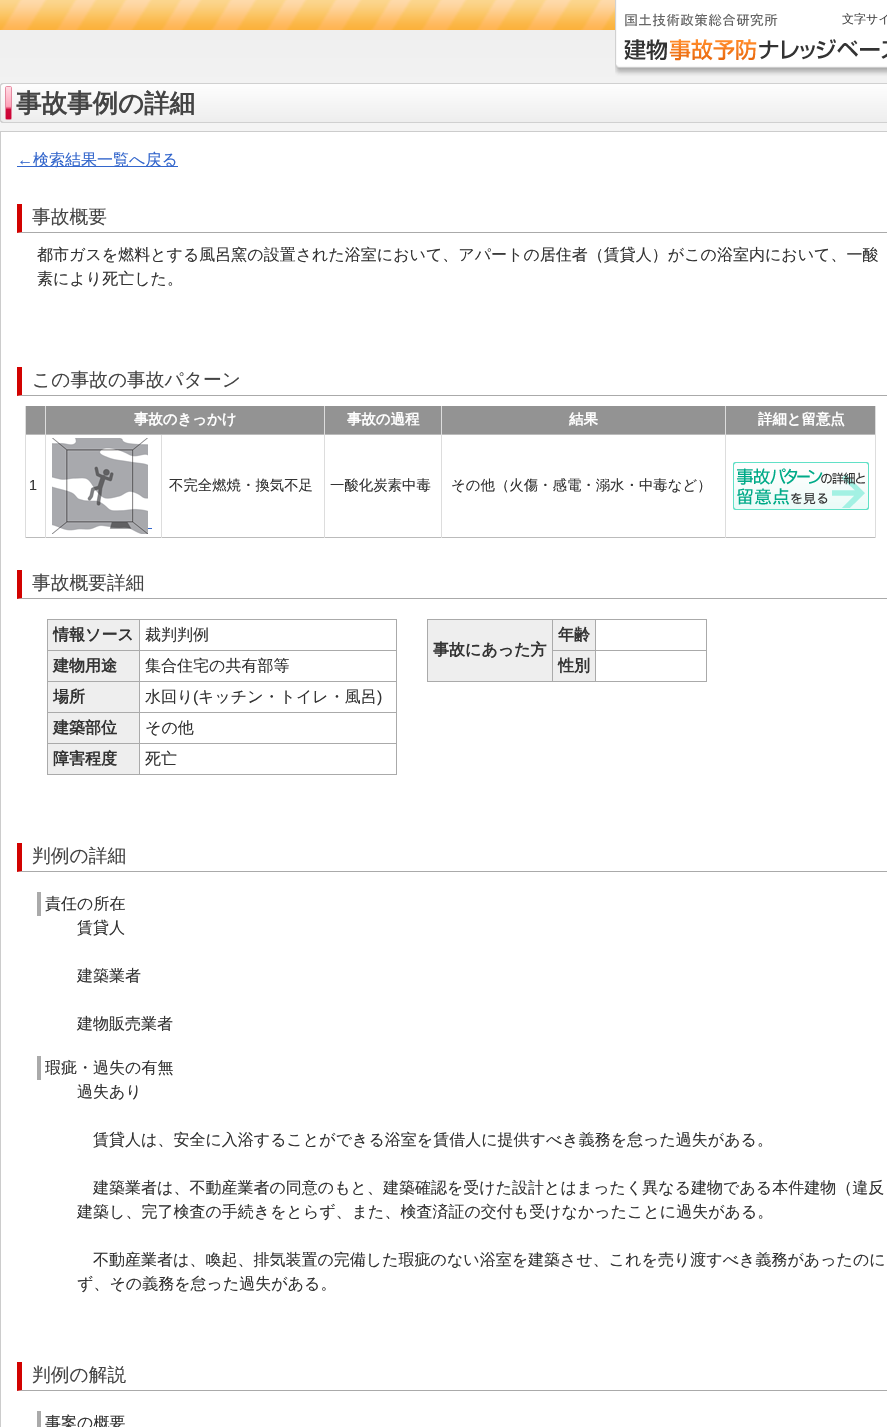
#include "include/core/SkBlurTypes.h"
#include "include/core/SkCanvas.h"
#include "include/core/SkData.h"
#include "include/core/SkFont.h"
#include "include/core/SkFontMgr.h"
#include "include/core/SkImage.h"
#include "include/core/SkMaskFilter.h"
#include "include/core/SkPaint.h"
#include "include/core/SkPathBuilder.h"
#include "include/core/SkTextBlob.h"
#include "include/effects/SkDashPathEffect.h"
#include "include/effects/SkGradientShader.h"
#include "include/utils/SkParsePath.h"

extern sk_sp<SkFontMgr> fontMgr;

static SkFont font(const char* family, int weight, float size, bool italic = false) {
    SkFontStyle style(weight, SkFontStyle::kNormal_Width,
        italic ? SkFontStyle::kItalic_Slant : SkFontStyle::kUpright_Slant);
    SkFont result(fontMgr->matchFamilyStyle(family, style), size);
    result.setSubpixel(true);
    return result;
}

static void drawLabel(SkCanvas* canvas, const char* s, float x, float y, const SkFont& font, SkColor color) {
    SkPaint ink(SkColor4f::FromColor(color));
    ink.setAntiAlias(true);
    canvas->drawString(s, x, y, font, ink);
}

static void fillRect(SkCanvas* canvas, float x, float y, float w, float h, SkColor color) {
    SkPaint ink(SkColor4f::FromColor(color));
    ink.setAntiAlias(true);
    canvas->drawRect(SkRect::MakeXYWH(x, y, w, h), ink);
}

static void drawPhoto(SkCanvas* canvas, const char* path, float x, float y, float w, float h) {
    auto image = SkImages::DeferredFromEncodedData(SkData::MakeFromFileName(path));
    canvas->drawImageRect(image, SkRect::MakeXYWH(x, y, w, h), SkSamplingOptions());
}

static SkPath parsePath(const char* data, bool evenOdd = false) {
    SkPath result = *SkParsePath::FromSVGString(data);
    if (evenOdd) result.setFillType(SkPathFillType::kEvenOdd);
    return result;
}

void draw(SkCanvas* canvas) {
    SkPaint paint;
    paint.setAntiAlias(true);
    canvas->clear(0xFFFFFFFF);
    drawPhoto(canvas, "assets/img1.png", 0, 0, 887, 131);
    drawPhoto(canvas, "assets/img2.png", 615, 0, 272, 76);
    SkFont font1 = font("WenQuanYi Zen Hei", 500, 12);
    drawLabel(canvas, "文字サイ", 842, 23, font1, 0xFF444444);
    drawPhoto(canvas, "assets/img3.png", 0, 83, 887, 40);
    SkFont font2 = font("WenQuanYi Zen Hei", 700, 25.5f);
    drawLabel(canvas, "事故事例の詳細", 16, 112, font2, 0xFF444444);
    paint.setStroke(true);
    paint.setStrokeWidth(1);
    paint.setColor(0xFFCCCCCC);
    canvas->drawRect(SkRect::MakeXYWH(0.5f, 131.5f, 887, 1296), paint);
    SkFont font3 = font("Liberation Sans", 400, 16);
    drawLabel(canvas, "←", 17, 165, font3, 0xFF3366CC);
    fillRect(canvas, 17, 166, 161, 1, 0xFF3366CC);
    SkFont font4 = font("WenQuanYi Zen Hei", 500, 16);
    drawLabel(canvas, "検索結果一覧へ戻る", 33, 165, font4, 0xFF3366CC);
    paint.setStroke(false);
    paint.setColor(0xFFAAAAAA);
    canvas->drawPath(parsePath("M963 233H17L22 232H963Z"), paint);
    paint.setColor(0xFFD20200);
    canvas->drawPath(parsePath("M17 233V204H22V232Z"), paint);
    SkFont font5 = font("WenQuanYi Zen Hei", 500, 18.75f);
    drawLabel(canvas, "事故概要", 32, 223, font5, 0xFF444444);
    drawLabel(canvas, "都市ガスを燃料とする風呂窯の設置された浴室において、アパートの居住者（賃貸人）がこの浴室内において、一酸", 37, 260, font4, 0xFF333333);
    drawLabel(canvas, "素により死亡した。", 37, 284, font4, 0xFF333333);
    paint.setColor(0xFFAAAAAA);
    canvas->drawPath(parsePath("M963 396H17L22 395H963Z"), paint);
    paint.setColor(0xFFD20200);
    canvas->drawPath(parsePath("M17 396V367H22V395Z"), paint);
    drawLabel(canvas, "この事故の事故パターン", 32, 386, font5, 0xFF444444);
    fillRect(canvas, 875, 406, 1, 132, 0xFFDDDDDD);
    fillRect(canvas, 26, 406, 19, 28, 0xFF939393);
    fillRect(canvas, 25, 434, 850, 1, 0xFFBBBBBB);
    fillRect(canvas, 25, 406, 1, 29, 0xFFDDDDDD);
    fillRect(canvas, 46, 406, 278, 28, 0xFF939393);
    fillRect(canvas, 45, 406, 1, 29, 0xFFDDDDDD);
    SkFont font6 = font("WenQuanYi Zen Hei", 700, 14.4f);
    drawLabel(canvas, "事故のきっかけ", 134, 424, font6, 0xFFFFFFFF);
    fillRect(canvas, 325, 406, 116, 28, 0xFF939393);
    fillRect(canvas, 324, 406, 1, 29, 0xFFDDDDDD);
    drawLabel(canvas, "事故の過程", 347, 424, font6, 0xFFFFFFFF);
    fillRect(canvas, 442, 406, 283, 28, 0xFF939393);
    fillRect(canvas, 441, 406, 1, 29, 0xFFDDDDDD);
    drawLabel(canvas, "結果", 569, 424, font6, 0xFFFFFFFF);
    fillRect(canvas, 726, 406, 149, 28, 0xFF939393);
    fillRect(canvas, 725, 406, 1, 29, 0xFFDDDDDD);
    drawLabel(canvas, "詳細と留意点", 758, 424, font6, 0xFFFFFFFF);
    fillRect(canvas, 25, 537, 850, 1, 0xFFBBBBBB);
    fillRect(canvas, 25, 435, 1, 103, 0xFFDDDDDD);
    SkFont font7 = font("Liberation Sans", 400, 14.4f);
    drawLabel(canvas, "1", 29, 490, font7, 0xFF333333);
    fillRect(canvas, 45, 435, 1, 103, 0xFFDDDDDD);
    drawPhoto(canvas, "assets/img4.png", 52, 438, 96, 96);
    fillRect(canvas, 148, 528, 4, 1, 0xFF3366CC);
    fillRect(canvas, 161, 435, 1, 103, 0xFFDDDDDD);
    SkFont font8 = font("WenQuanYi Zen Hei", 500, 14.4f);
    drawLabel(canvas, "不完全燃焼・換気不足", 169, 490, font8, 0xFF333333);
    fillRect(canvas, 324, 435, 1, 103, 0xFFDDDDDD);
    drawLabel(canvas, "一酸化炭素中毒", 330, 490, font8, 0xFF333333);
    fillRect(canvas, 441, 435, 1, 103, 0xFFDDDDDD);
    drawLabel(canvas, "その他（火傷・感電・溺水・中毒など）", 451, 490, font8, 0xFF333333);
    fillRect(canvas, 725, 435, 1, 103, 0xFFDDDDDD);
    drawPhoto(canvas, "assets/img5.png", 733, 462, 136, 48);
    paint.setColor(0xFFAAAAAA);
    canvas->drawPath(parsePath("M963 599H17L22 598H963Z"), paint);
    paint.setColor(0xFFD20200);
    canvas->drawPath(parsePath("M17 599V570H22V598Z"), paint);
    drawLabel(canvas, "事故概要詳細", 32, 589, font5, 0xFF444444);
    fillRect(canvas, 47, 619, 350, 1, 0xFFAAAAAA);
    fillRect(canvas, 47, 619, 1, 156, 0xFFAAAAAA);
    fillRect(canvas, 48, 620, 91, 30, 0xFFEEEEEE);
    fillRect(canvas, 139, 620, 1, 155, 0xFFAAAAAA);
    fillRect(canvas, 48, 650, 92, 1, 0xFFAAAAAA);
    SkFont font9 = font("WenQuanYi Zen Hei", 700, 16);
    drawLabel(canvas, "情報ソース", 53, 640, font9, 0xFF333333);
    fillRect(canvas, 396, 620, 1, 155, 0xFFAAAAAA);
    fillRect(canvas, 140, 650, 257, 1, 0xFFAAAAAA);
    drawLabel(canvas, "裁判判例", 145, 640, font4, 0xFF333333);
    fillRect(canvas, 48, 651, 91, 30, 0xFFEEEEEE);
    fillRect(canvas, 48, 681, 349, 1, 0xFFAAAAAA);
    drawLabel(canvas, "建物用途", 53, 671, font9, 0xFF333333);
    drawLabel(canvas, "集合住宅の共有部等", 145, 671, font4, 0xFF333333);
    fillRect(canvas, 48, 682, 91, 30, 0xFFEEEEEE);
    fillRect(canvas, 48, 712, 349, 1, 0xFFAAAAAA);
    drawLabel(canvas, "場所", 53, 702, font9, 0xFF333333);
    drawLabel(canvas, "水回り", 145, 702, font4, 0xFF333333);
    drawLabel(canvas, "(", 193, 702, font3, 0xFF333333);
    drawLabel(canvas, "キッチン・トイレ・風呂", 198, 702, font4, 0xFF333333);
    drawLabel(canvas, ")", 377, 702, font3, 0xFF333333);
    fillRect(canvas, 48, 713, 91, 30, 0xFFEEEEEE);
    fillRect(canvas, 48, 743, 349, 1, 0xFFAAAAAA);
    drawLabel(canvas, "建築部位", 53, 733, font9, 0xFF333333);
    drawLabel(canvas, "その他", 145, 733, font4, 0xFF333333);
    fillRect(canvas, 48, 744, 91, 30, 0xFFEEEEEE);
    fillRect(canvas, 48, 774, 349, 1, 0xFFAAAAAA);
    drawLabel(canvas, "障害程度", 53, 764, font9, 0xFF333333);
    drawLabel(canvas, "死亡", 145, 764, font4, 0xFF333333);
    fillRect(canvas, 427, 619, 280, 1, 0xFFAAAAAA);
    fillRect(canvas, 427, 619, 1, 63, 0xFFAAAAAA);
    fillRect(canvas, 553, 620, 42, 30, 0xFFEEEEEE);
    fillRect(canvas, 595, 620, 1, 62, 0xFFAAAAAA);
    fillRect(canvas, 553, 650, 43, 1, 0xFFAAAAAA);
    drawLabel(canvas, "年齢", 558, 640, font9, 0xFF333333);
    fillRect(canvas, 706, 620, 1, 62, 0xFFAAAAAA);
    fillRect(canvas, 596, 650, 111, 1, 0xFFAAAAAA);
    fillRect(canvas, 428, 620, 124, 61, 0xFFEEEEEE);
    fillRect(canvas, 552, 620, 1, 62, 0xFFAAAAAA);
    fillRect(canvas, 428, 681, 125, 1, 0xFFAAAAAA);
    drawLabel(canvas, "事故にあった方", 433, 655, font9, 0xFF333333);
    fillRect(canvas, 553, 651, 42, 30, 0xFFEEEEEE);
    fillRect(canvas, 553, 681, 154, 1, 0xFFAAAAAA);
    drawLabel(canvas, "性別", 558, 671, font9, 0xFF333333);
    paint.setColor(0xFFAAAAAA);
    canvas->drawPath(parsePath("M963 872H17L22 871H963Z"), paint);
    paint.setColor(0xFFD20200);
    canvas->drawPath(parsePath("M17 872V843H22V871Z"), paint);
    drawLabel(canvas, "判例の詳細", 32, 862, font5, 0xFF444444);
    fillRect(canvas, 37, 892, 4, 24, 0xFFAAAAAA);
    drawLabel(canvas, "責任の所在", 45, 909, font4, 0xFF333333);
    drawLabel(canvas, "賃貸人", 77, 933, font4, 0xFF333333);
    drawLabel(canvas, "建築業者", 77, 981, font4, 0xFF333333);
    drawLabel(canvas, "建物販売業者", 77, 1029, font4, 0xFF333333);
    fillRect(canvas, 37, 1056, 4, 24, 0xFFAAAAAA);
    drawLabel(canvas, "瑕疵・過失の有無", 45, 1073, font4, 0xFF333333);
    drawLabel(canvas, "過失あり", 77, 1097, font4, 0xFF333333);
    drawLabel(canvas, "賃貸人は、安全に入浴することができる浴室を賃借人に提供すべき義務を怠った過失がある。", 93, 1145, font4, 0xFF333333);
    drawLabel(canvas, "建築業者は、不動産業者の同意のもと、建築確認を受けた設計とはまったく異なる建物である本件建物（違反", 93, 1193, font4, 0xFF333333);
    drawLabel(canvas, "建築し、完了検査の手続きをとらず、また、検査済証の交付も受けなかったことに過失がある。", 77, 1217, font4, 0xFF333333);
    drawLabel(canvas, "不動産業者は、喚起、排気装置の完備した瑕疵のない浴室を建築させ、これを売り渡すべき義務があったのに", 93, 1265, font4, 0xFF333333);
    drawLabel(canvas, "ず、その義務を怠った過失がある。", 77, 1289, font4, 0xFF333333);
    paint.setColor(0xFFAAAAAA);
    canvas->drawPath(parsePath("M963 1391H17L22 1390H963Z"), paint);
    paint.setColor(0xFFD20200);
    canvas->drawPath(parsePath("M17 1391V1362H22V1390Z"), paint);
    drawLabel(canvas, "判例の解説", 32, 1381, font5, 0xFF444444);
    fillRect(canvas, 37, 1411, 4, 16, 0xFFAAAAAA);
    drawLabel(canvas, "事案の概要", 45, 1428, font4, 0xFF333333);
}
